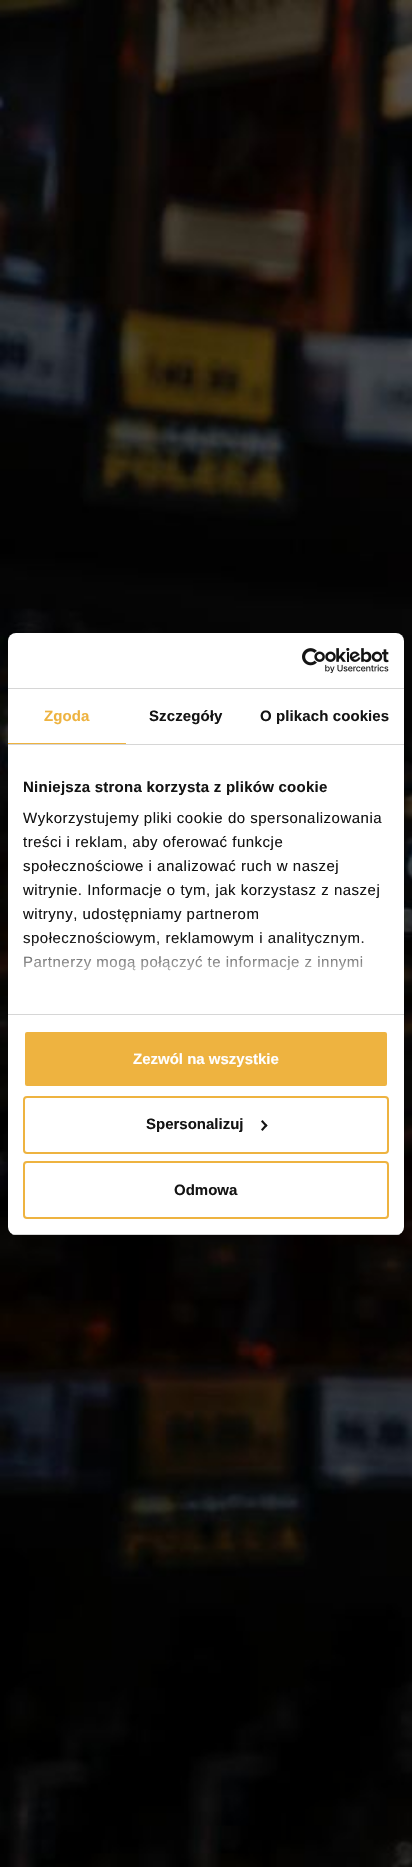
#include "include/core/SkBlurTypes.h"
#include "include/core/SkCanvas.h"
#include "include/core/SkData.h"
#include "include/core/SkFont.h"
#include "include/core/SkFontMgr.h"
#include "include/core/SkImage.h"
#include "include/core/SkMaskFilter.h"
#include "include/core/SkPaint.h"
#include "include/core/SkPathBuilder.h"
#include "include/core/SkTextBlob.h"
#include "include/effects/SkDashPathEffect.h"
#include "include/effects/SkGradientShader.h"
#include "include/utils/SkParsePath.h"

extern sk_sp<SkFontMgr> fontMgr;

static SkFont font(const char* family, int weight, float size, bool italic = false) {
    SkFontStyle style(weight, SkFontStyle::kNormal_Width,
        italic ? SkFontStyle::kItalic_Slant : SkFontStyle::kUpright_Slant);
    SkFont result(fontMgr->matchFamilyStyle(family, style), size);
    result.setSubpixel(true);
    return result;
}

static void drawLabel(SkCanvas* canvas, const char* s, float x, float y, const SkFont& font, SkColor color) {
    SkPaint ink(SkColor4f::FromColor(color));
    ink.setAntiAlias(true);
    canvas->drawString(s, x, y, font, ink);
}

static void drawTracked(SkCanvas* canvas, const char* s, float x, float y, const SkFont& font, const SkPaint& ink, float letter, float word) {
    std::vector<SkGlyphID> glyphs(font.countText(s, strlen(s), SkTextEncoding::kUTF8));
    std::vector<float> xs(glyphs.size());
    font.textToGlyphs(s, strlen(s), SkTextEncoding::kUTF8, glyphs);
    font.getXPos(glyphs, xs, x);
    float extra = 0;
    for (size_t i = 0; i < glyphs.size(); i++) {
        xs[i] += extra;
        extra += letter + word * (glyphs[i] == font.unicharToGlyph(' '));
    }
    canvas->drawTextBlob(SkTextBlob::MakeFromPosHGlyphs(glyphs, xs, y, font), 0, 0, ink);
}

static void fillRect(SkCanvas* canvas, float x, float y, float w, float h, SkColor color) {
    SkPaint ink(SkColor4f::FromColor(color));
    ink.setAntiAlias(true);
    canvas->drawRect(SkRect::MakeXYWH(x, y, w, h), ink);
}

static void fillRRect(SkCanvas* canvas, float x, float y, float w, float h, float radius, SkColor color) {
    SkPaint ink(SkColor4f::FromColor(color));
    ink.setAntiAlias(true);
    canvas->drawRoundRect(SkRect::MakeXYWH(x, y, w, h), radius, radius, ink);
}

static void drawPhoto(SkCanvas* canvas, const char* path, float x, float y, float w, float h) {
    auto image = SkImages::DeferredFromEncodedData(SkData::MakeFromFileName(path));
    canvas->drawImageRect(image, SkRect::MakeXYWH(x, y, w, h), SkSamplingOptions());
}

static SkPath parsePath(const char* data, bool evenOdd = false) {
    SkPath result = *SkParsePath::FromSVGString(data);
    if (evenOdd) result.setFillType(SkPathFillType::kEvenOdd);
    return result;
}

void draw(SkCanvas* canvas) {
    SkPaint paint;
    paint.setAntiAlias(true);
    canvas->clear(0xFFFFFFFF);
    drawPhoto(canvas, "assets/img1.png", 0, 0, 412, 1867);
    paint.setColor(0x29000000);
    paint.setMaskFilter(SkMaskFilter::MakeBlur(kNormal_SkBlurStyle, 33));
    canvas->drawRoundRect(SkRect::MakeXYWH(20, 789, 372, 375), 30, 30, paint);
    paint.setMaskFilter(nullptr);
    paint.setColor(0x4D000000);
    paint.setMaskFilter(SkMaskFilter::MakeBlur(kNormal_SkBlurStyle, 34));
    canvas->drawRoundRect(SkRect::MakeXYWH(8, 665, 396, 602), 8, 8, paint);
    paint.setMaskFilter(nullptr);
    fillRRect(canvas, 8, 633, 396, 602, 8, 0xFFFFFFFF);
    fillRect(canvas, 8, 688, 396, 1, 0xFFD6D6D6);
    drawPhoto(canvas, "assets/img2.png", 302, 648, 87, 25);
    fillRect(canvas, 8, 744, 396, 1, 0xFFD6D6D6);
    fillRect(canvas, 8, 743, 118, 1, 0xFFEEB340);
    SkFont font1 = font("Liberation Sans", 700, 15);
    paint.setColor(0xFFEEB340);
    drawTracked(canvas, "Zgoda", 44, 721, font1, paint, 0.1f, 0);
    paint.setColor(0xFF141414);
    drawTracked(canvas, "Szczegóły", 149, 721, font1, paint, 0.1f, 0);
    drawTracked(canvas, "O plikach cookies", 260, 721, font1, paint, 0.1f, 0);
    fillRect(canvas, 8, 1014, 396, 1, 0xFFD6D6D6);
    drawTracked(canvas, "Niniejsza strona korzysta z plików cookie", 23, 792, font1, paint, 0.25f, 0);
    SkFont font2 = font("Liberation Sans", 400, 15);
    drawTracked(canvas, "Wykorzystujemy pliki cookie do spersonalizowania", 23, 823, font2, paint, 0.5f, 0);
    drawTracked(canvas, "treści i reklam, aby oferować funkcje", 23, 847, font2, paint, 0.5f, 0);
    drawTracked(canvas, "społecznościowe i analizować ruch w naszej", 23, 871, font2, paint, 0.5f, 0);
    drawTracked(canvas, "witrynie. Informacje o tym, jak korzystasz z naszej", 23, 895, font2, paint, 0.5f, 0);
    drawTracked(canvas, "witryny, udostępniamy partnerom", 23, 919, font2, paint, 0.5f, 0);
    drawTracked(canvas, "społecznościowym, reklamowym i analitycznym.", 23, 943, font2, paint, 0.5f, 0);
    drawTracked(canvas, "Partnerzy mogą połączyć te informacje z innymi", 23, 967, font2, paint, 0.5f, 0);
    {
        const SkColor colors[] = {0xFFFFFFFF, 0xCCFFFFFF, 0x00FFFFFF};
        const float stops[] = {0, 0.5f, 1};
        const SkPoint ends[] = {{200, 1014}, {200, 939}};
        paint.setShader(SkGradientShader::MakeLinear(ends, colors, stops, 3, SkTileMode::kClamp));
        paint.setAlpha(255);
    }
    canvas->drawRect(SkRect::MakeXYWH(23, 940, 341, 31), paint);
    canvas->save();
    canvas->clipPath(parsePath("M16 633H396C400.5 633 404 636.5 404 641V1227C404 1231.5 400.5 1235 396 1235H16C11.5 1235 8 1231.5 8 1227V641C8 636.5 11.5 633 16 633Z"), true);
    fillRect(canvas, 8, 1234, 396, 1, 0xFFD6D6D6);
    canvas->restore();
    paint.setShader(nullptr);
    paint.setColor(0xFFEEB340);
    canvas->drawRoundRect(SkRect::MakeXYWH(24, 1031, 364, 56), 3, 3, paint);
    paint.setStroke(true);
    paint.setStrokeWidth(2);
    paint.setColor(0xFFFFFFFF);
    canvas->drawRoundRect(SkRect::MakeXYWH(24, 1031, 364, 56), 3, 3, paint);
    drawLabel(canvas, "Zezwól na wszystkie", 133, 1064, font1, 0xFFFFFFFF);
    paint.setColor(0xFFEEB340);
    canvas->drawRoundRect(SkRect::MakeXYWH(24, 1097, 364, 56), 3, 3, paint);
    drawLabel(canvas, "Spersonalizuj", 146, 1129, font1, 0xFF141414);
    paint.setStroke(false);
    paint.setColor(0xFF141414);
    canvas->drawPath(parsePath("M262.5 1120L267.5 1125.5L266 1127L261 1121.5Z"), paint);
    canvas->drawPath(parsePath("M266 1124L267.5 1125.5L262.5 1131L261 1129.5Z"), paint);
    paint.setStroke(true);
    paint.setColor(0xFFEEB340);
    canvas->drawRoundRect(SkRect::MakeXYWH(24, 1162, 364, 56), 3, 3, paint);
    drawLabel(canvas, "Odmowa", 174, 1195, font1, 0xFF141414);
}
